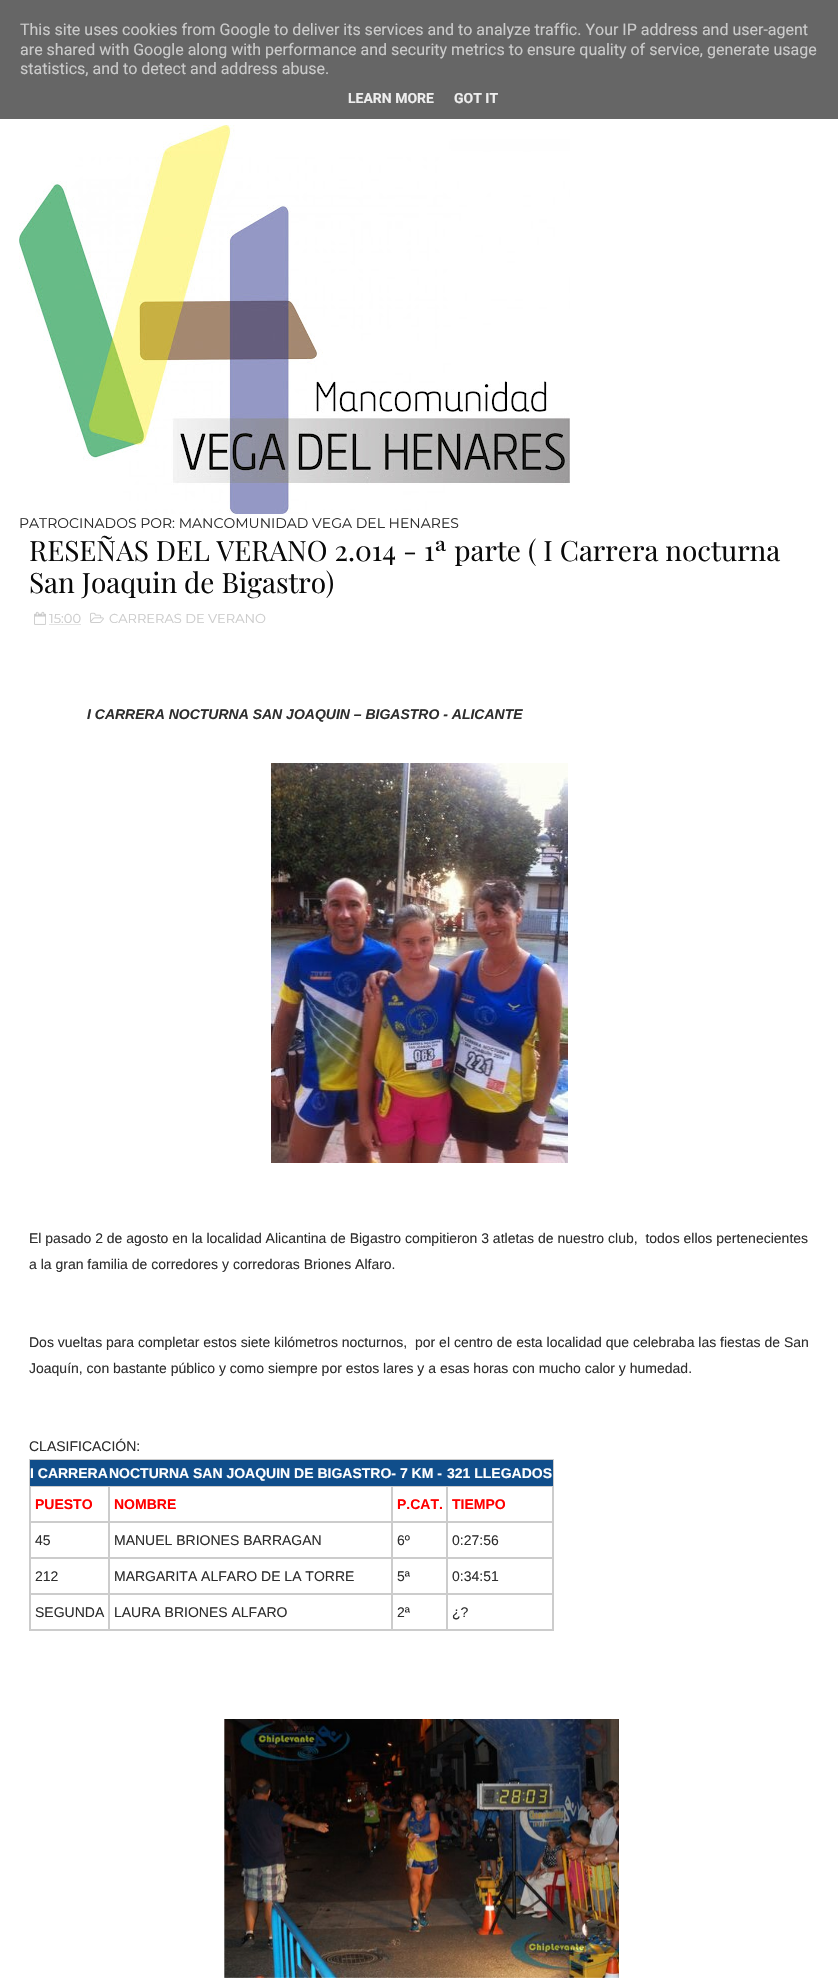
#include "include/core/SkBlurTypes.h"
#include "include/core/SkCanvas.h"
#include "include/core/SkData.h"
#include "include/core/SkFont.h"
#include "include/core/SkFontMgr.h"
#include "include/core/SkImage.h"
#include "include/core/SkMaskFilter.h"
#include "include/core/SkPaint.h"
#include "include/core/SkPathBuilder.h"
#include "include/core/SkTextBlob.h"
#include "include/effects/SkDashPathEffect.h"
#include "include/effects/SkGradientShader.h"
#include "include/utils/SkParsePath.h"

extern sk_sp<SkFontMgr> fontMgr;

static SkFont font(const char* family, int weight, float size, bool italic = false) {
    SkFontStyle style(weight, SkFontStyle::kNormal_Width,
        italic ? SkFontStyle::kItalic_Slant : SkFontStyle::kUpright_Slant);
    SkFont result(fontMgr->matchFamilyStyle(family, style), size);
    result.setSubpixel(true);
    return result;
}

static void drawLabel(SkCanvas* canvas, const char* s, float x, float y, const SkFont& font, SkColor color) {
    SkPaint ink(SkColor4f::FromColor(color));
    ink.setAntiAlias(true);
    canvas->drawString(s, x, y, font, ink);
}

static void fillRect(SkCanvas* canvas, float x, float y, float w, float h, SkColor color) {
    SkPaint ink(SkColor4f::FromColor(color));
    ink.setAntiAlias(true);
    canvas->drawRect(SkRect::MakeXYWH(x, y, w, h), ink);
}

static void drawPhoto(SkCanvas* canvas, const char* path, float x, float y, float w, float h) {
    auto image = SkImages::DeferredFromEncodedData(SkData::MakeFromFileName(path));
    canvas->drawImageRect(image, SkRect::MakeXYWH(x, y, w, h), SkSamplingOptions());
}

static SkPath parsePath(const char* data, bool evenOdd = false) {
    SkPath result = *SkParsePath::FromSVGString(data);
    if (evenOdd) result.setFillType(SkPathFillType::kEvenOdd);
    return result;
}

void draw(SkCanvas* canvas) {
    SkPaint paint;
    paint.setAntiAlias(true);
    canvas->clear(0xFFFFFFFF);
    fillRect(canvas, 0, 0, 838, 119, 0xFF666666);
    SkFont font1 = font("Roboto", 400, 16);
    drawLabel(canvas, "This site uses cookies from Google to deliver its services and to analyze traffic. Your IP address and user-agent", 20, 35, font1, 0xFFCBCBCB);
    drawLabel(canvas, "are shared with Google along with performance and security metrics to ensure quality of service, generate usage", 20, 55, font1, 0xFFCBCBCB);
    drawLabel(canvas, "statistics, and to detect and address abuse.", 20, 74, font1, 0xFFCBCBCB);
    SkFont font2 = font("Roboto", 700, 14);
    drawLabel(canvas, "LEARN MORE", 348, 103, font2, 0xFFEEEEEE);
    drawLabel(canvas, "GOT IT", 454, 103, font2, 0xFFEEEEEE);
    drawPhoto(canvas, "assets/img1.png", 19, 125, 551, 389);
    SkFont font3 = font("Montserrat", 400, 14);
    drawLabel(canvas, "PATROCINADOS POR: MANCOMUNIDAD VEGA DEL HENARES", 19, 528, font3, 0xFF2E2E2E);
    SkFont font4 = font("Playfair Display", 400, 28);
    drawLabel(canvas, "RESEÑAS DEL VERANO 2.014 - 1ª parte ( I Carrera nocturna", 29, 561, font4, 0xFF0A0A0A);
    drawLabel(canvas, "San Joaquin de Bigastro)", 29, 593, font4, 0xFF0A0A0A);
    drawPhoto(canvas, "assets/img2.png", 34, 611, 12, 14);
    SkFont font5 = font("Montserrat", 400, 13);
    drawLabel(canvas, "15:00", 49, 623, font5, 0xFFCBCBCB);
    paint.setStroke(true);
    paint.setStrokeWidth(1);
    paint.setColor(0xFFCBCBCB);
    paint.setPathEffect(SkDashPathEffect::Make({{1, 1}}, 0));
    canvas->drawPath(parsePath("M49.5 624.5H81.5"), paint);
    paint.setPathEffect(nullptr);
    drawPhoto(canvas, "assets/img3.png", 90, 612, 14, 11);
    drawLabel(canvas, "CARRERAS DE VERANO", 109, 623, font5, 0xFFCBCBCB);
    SkFont font6 = font("Liberation Sans", 700, 14, true);
    drawLabel(canvas, "I CARRERA NOCTURNA SAN JOAQUIN – BIGASTRO - ALICANTE", 87, 719, font6, 0xFF2E2E2E);
    drawPhoto(canvas, "assets/img4.png", 271, 763, 297, 400);
    SkFont font7 = font("Liberation Sans", 400, 14);
    drawLabel(canvas, "El pasado 2 de agosto en la localidad Alicantina de Bigastro compitieron 3 atletas de nuestro club,  todos ellos pertenecientes", 29, 1243, font7, 0xFF2E2E2E);
    drawLabel(canvas, "a la gran familia de corredores y corredoras Briones Alfaro.", 29, 1269, font7, 0xFF2E2E2E);
    drawLabel(canvas, "Dos vueltas para completar estos siete kilómetros nocturnos,", 29, 1347, font7, 0xFF2E2E2E);
    drawLabel(canvas, "por el centro de esta localidad que celebraba las fiestas de San", 415, 1347, font7, 0xFF2E2E2E);
    drawLabel(canvas, "Joaquín, con bastante público y como siempre por estos lares y a esas horas con mucho calor y humedad.", 29, 1373, font7, 0xFF2E2E2E);
    drawLabel(canvas, "CLASIFICACIÓN:", 29, 1451, font7, 0xFF2E2E2E);
    paint.setColor(0xFFCCCCCC);
    canvas->drawRect(SkRect::MakeXYWH(29.5f, 1459.5f, 524, 171), paint);
    fillRect(canvas, 30, 1460, 523, 26, 0xFF104E8B);
    SkFont font8 = font("Liberation Sans", 700, 14);
    drawLabel(canvas, "I CARRERA", 30, 1478, font8, 0xFFFFFFFF);
    drawLabel(canvas, "NOCTURNA SAN JOAQUIN DE BIGASTRO- 7 KM -", 109, 1478, font8, 0xFFFFFFFF);
    drawLabel(canvas, "321 LLEGADOS", 447, 1478, font8, 0xFFFFFFFF);
    canvas->drawRect(SkRect::MakeXYWH(30.5f, 1486.5f, 78, 35), paint);
    drawLabel(canvas, "PUESTO", 35, 1509, font8, 0xFFFF0000);
    canvas->drawRect(SkRect::MakeXYWH(109.5f, 1486.5f, 282, 35), paint);
    drawLabel(canvas, "NOMBRE", 114, 1509, font8, 0xFFFF0000);
    canvas->drawRect(SkRect::MakeXYWH(392.5f, 1486.5f, 54, 35), paint);
    drawLabel(canvas, "P.CAT.", 397, 1509, font8, 0xFFFF0000);
    canvas->drawRect(SkRect::MakeXYWH(447.5f, 1486.5f, 105, 35), paint);
    drawLabel(canvas, "TIEMPO", 452, 1509, font8, 0xFFFF0000);
    canvas->drawRect(SkRect::MakeXYWH(30.5f, 1522.5f, 78, 35), paint);
    drawLabel(canvas, "45", 35, 1545, font7, 0xFF2E2E2E);
    canvas->drawRect(SkRect::MakeXYWH(109.5f, 1522.5f, 282, 35), paint);
    drawLabel(canvas, "MANUEL BRIONES BARRAGAN", 114, 1545, font7, 0xFF2E2E2E);
    canvas->drawRect(SkRect::MakeXYWH(392.5f, 1522.5f, 54, 35), paint);
    drawLabel(canvas, "6º", 397, 1545, font7, 0xFF2E2E2E);
    canvas->drawRect(SkRect::MakeXYWH(447.5f, 1522.5f, 105, 35), paint);
    drawLabel(canvas, "0:27:56", 452, 1545, font7, 0xFF2E2E2E);
    canvas->drawRect(SkRect::MakeXYWH(30.5f, 1558.5f, 78, 35), paint);
    drawLabel(canvas, "212", 35, 1581, font7, 0xFF2E2E2E);
    canvas->drawRect(SkRect::MakeXYWH(109.5f, 1558.5f, 282, 35), paint);
    drawLabel(canvas, "MARGARITA ALFARO DE LA TORRE", 114, 1581, font7, 0xFF2E2E2E);
    canvas->drawRect(SkRect::MakeXYWH(392.5f, 1558.5f, 54, 35), paint);
    drawLabel(canvas, "5ª", 397, 1581, font7, 0xFF2E2E2E);
    canvas->drawRect(SkRect::MakeXYWH(447.5f, 1558.5f, 105, 35), paint);
    drawLabel(canvas, "0:34:51", 452, 1581, font7, 0xFF2E2E2E);
    canvas->drawRect(SkRect::MakeXYWH(30.5f, 1594.5f, 78, 35), paint);
    drawLabel(canvas, "SEGUNDA", 35, 1617, font7, 0xFF2E2E2E);
    canvas->drawRect(SkRect::MakeXYWH(109.5f, 1594.5f, 282, 35), paint);
    drawLabel(canvas, "LAURA BRIONES ALFARO", 114, 1617, font7, 0xFF2E2E2E);
    canvas->drawRect(SkRect::MakeXYWH(392.5f, 1594.5f, 54, 35), paint);
    drawLabel(canvas, "2ª", 397, 1617, font7, 0xFF2E2E2E);
    canvas->drawRect(SkRect::MakeXYWH(447.5f, 1594.5f, 105, 35), paint);
    drawLabel(canvas, "¿?", 452, 1617, font7, 0xFF2E2E2E);
    drawPhoto(canvas, "assets/img5.png", 224, 1719, 395, 259);
}
